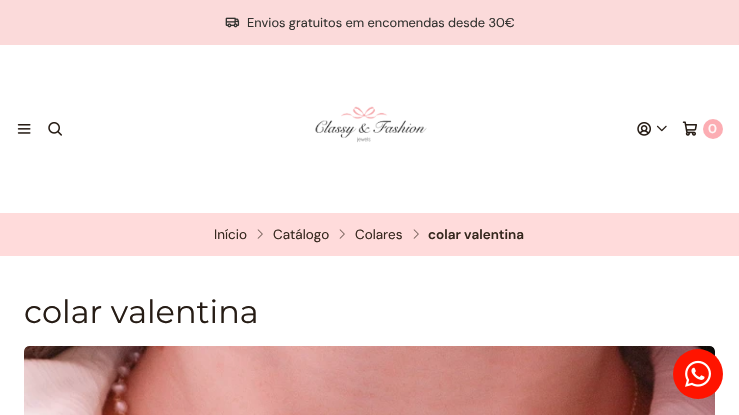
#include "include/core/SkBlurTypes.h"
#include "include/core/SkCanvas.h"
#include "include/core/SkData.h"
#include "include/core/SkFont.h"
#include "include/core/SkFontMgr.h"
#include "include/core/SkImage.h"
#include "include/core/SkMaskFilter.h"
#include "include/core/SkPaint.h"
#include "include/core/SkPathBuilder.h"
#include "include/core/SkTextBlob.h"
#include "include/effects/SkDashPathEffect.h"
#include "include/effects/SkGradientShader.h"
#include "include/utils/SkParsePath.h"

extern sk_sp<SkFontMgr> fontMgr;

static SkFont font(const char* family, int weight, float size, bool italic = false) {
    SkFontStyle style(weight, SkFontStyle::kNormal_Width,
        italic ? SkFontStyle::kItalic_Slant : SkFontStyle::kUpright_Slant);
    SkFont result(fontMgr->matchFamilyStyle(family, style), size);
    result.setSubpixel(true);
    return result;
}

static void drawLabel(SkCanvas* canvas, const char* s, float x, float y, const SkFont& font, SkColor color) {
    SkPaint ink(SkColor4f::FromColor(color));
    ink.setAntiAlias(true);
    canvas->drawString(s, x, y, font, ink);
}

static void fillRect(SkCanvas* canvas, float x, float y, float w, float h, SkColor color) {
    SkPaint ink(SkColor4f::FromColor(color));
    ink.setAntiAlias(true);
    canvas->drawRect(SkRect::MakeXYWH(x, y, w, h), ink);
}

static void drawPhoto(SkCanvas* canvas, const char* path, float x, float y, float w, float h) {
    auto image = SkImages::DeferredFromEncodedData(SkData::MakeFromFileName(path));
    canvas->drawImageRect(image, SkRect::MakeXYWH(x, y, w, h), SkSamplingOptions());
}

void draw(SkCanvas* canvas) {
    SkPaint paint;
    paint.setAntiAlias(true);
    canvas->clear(0xFFFFFFFF);
    fillRect(canvas, 0, 0, 739, 45, 0xFFFBDADA);
    drawPhoto(canvas, "assets/img1.png", 225, 17, 15, 11);
    SkFont font1 = font("DM Sans", 400, 12.8f);
    drawLabel(canvas, "Envios gratuitos em encomendas desde 30€", 247, 27, font1, 0xFF333330);
    drawPhoto(canvas, "assets/img2.png", 17, 124, 14, 10);
    drawPhoto(canvas, "assets/img3.png", 48, 122, 14, 14);
    drawPhoto(canvas, "assets/img4.png", 315, 106, 112, 37);
    drawPhoto(canvas, "assets/img5.png", 637, 122, 14, 14);
    drawPhoto(canvas, "assets/img6.png", 656, 125, 11, 7);
    drawPhoto(canvas, "assets/img7.png", 682, 121, 15, 15);
    paint.setColor(0xFFFCADB3);
    canvas->drawCircle(713, 129, 10, paint);
    SkFont font2 = font("DM Sans", 600, 12.8f);
    drawLabel(canvas, "0", 708, 133, font2, 0xFFFFF6F6);
    fillRect(canvas, 0, 213, 739, 43, 0xFFFFDBDB);
    SkFont font3 = font("DM Sans", 400, 13.5f);
    drawLabel(canvas, "Início", 214, 239, font3, 0xFF35271D);
    drawPhoto(canvas, "assets/img8.png", 257, 229, 6, 10);
    drawLabel(canvas, "Catálogo", 273, 239, font3, 0xFF35271D);
    drawPhoto(canvas, "assets/img8.png", 339, 229, 6, 10);
    drawLabel(canvas, "Colares", 355, 239, font3, 0xFF35271D);
    drawPhoto(canvas, "assets/img8.png", 413, 229, 6, 10);
    SkFont font4 = font("DM Sans", 600, 13.5f);
    drawLabel(canvas, "colar valentina", 428, 239, font4, 0xFF35271D);
    SkFont font5 = font("Montserrat", 400, 32);
    drawLabel(canvas, "colar valentina", 24, 323, font5, 0xFF261C15);
    drawPhoto(canvas, "assets/img9.png", 24, 346, 691, 69);
    paint.setColor(0xFFFF1400);
    canvas->drawCircle(698, 374, 25, paint);
    drawPhoto(canvas, "assets/img10.png", 685, 360, 26, 27);
}
